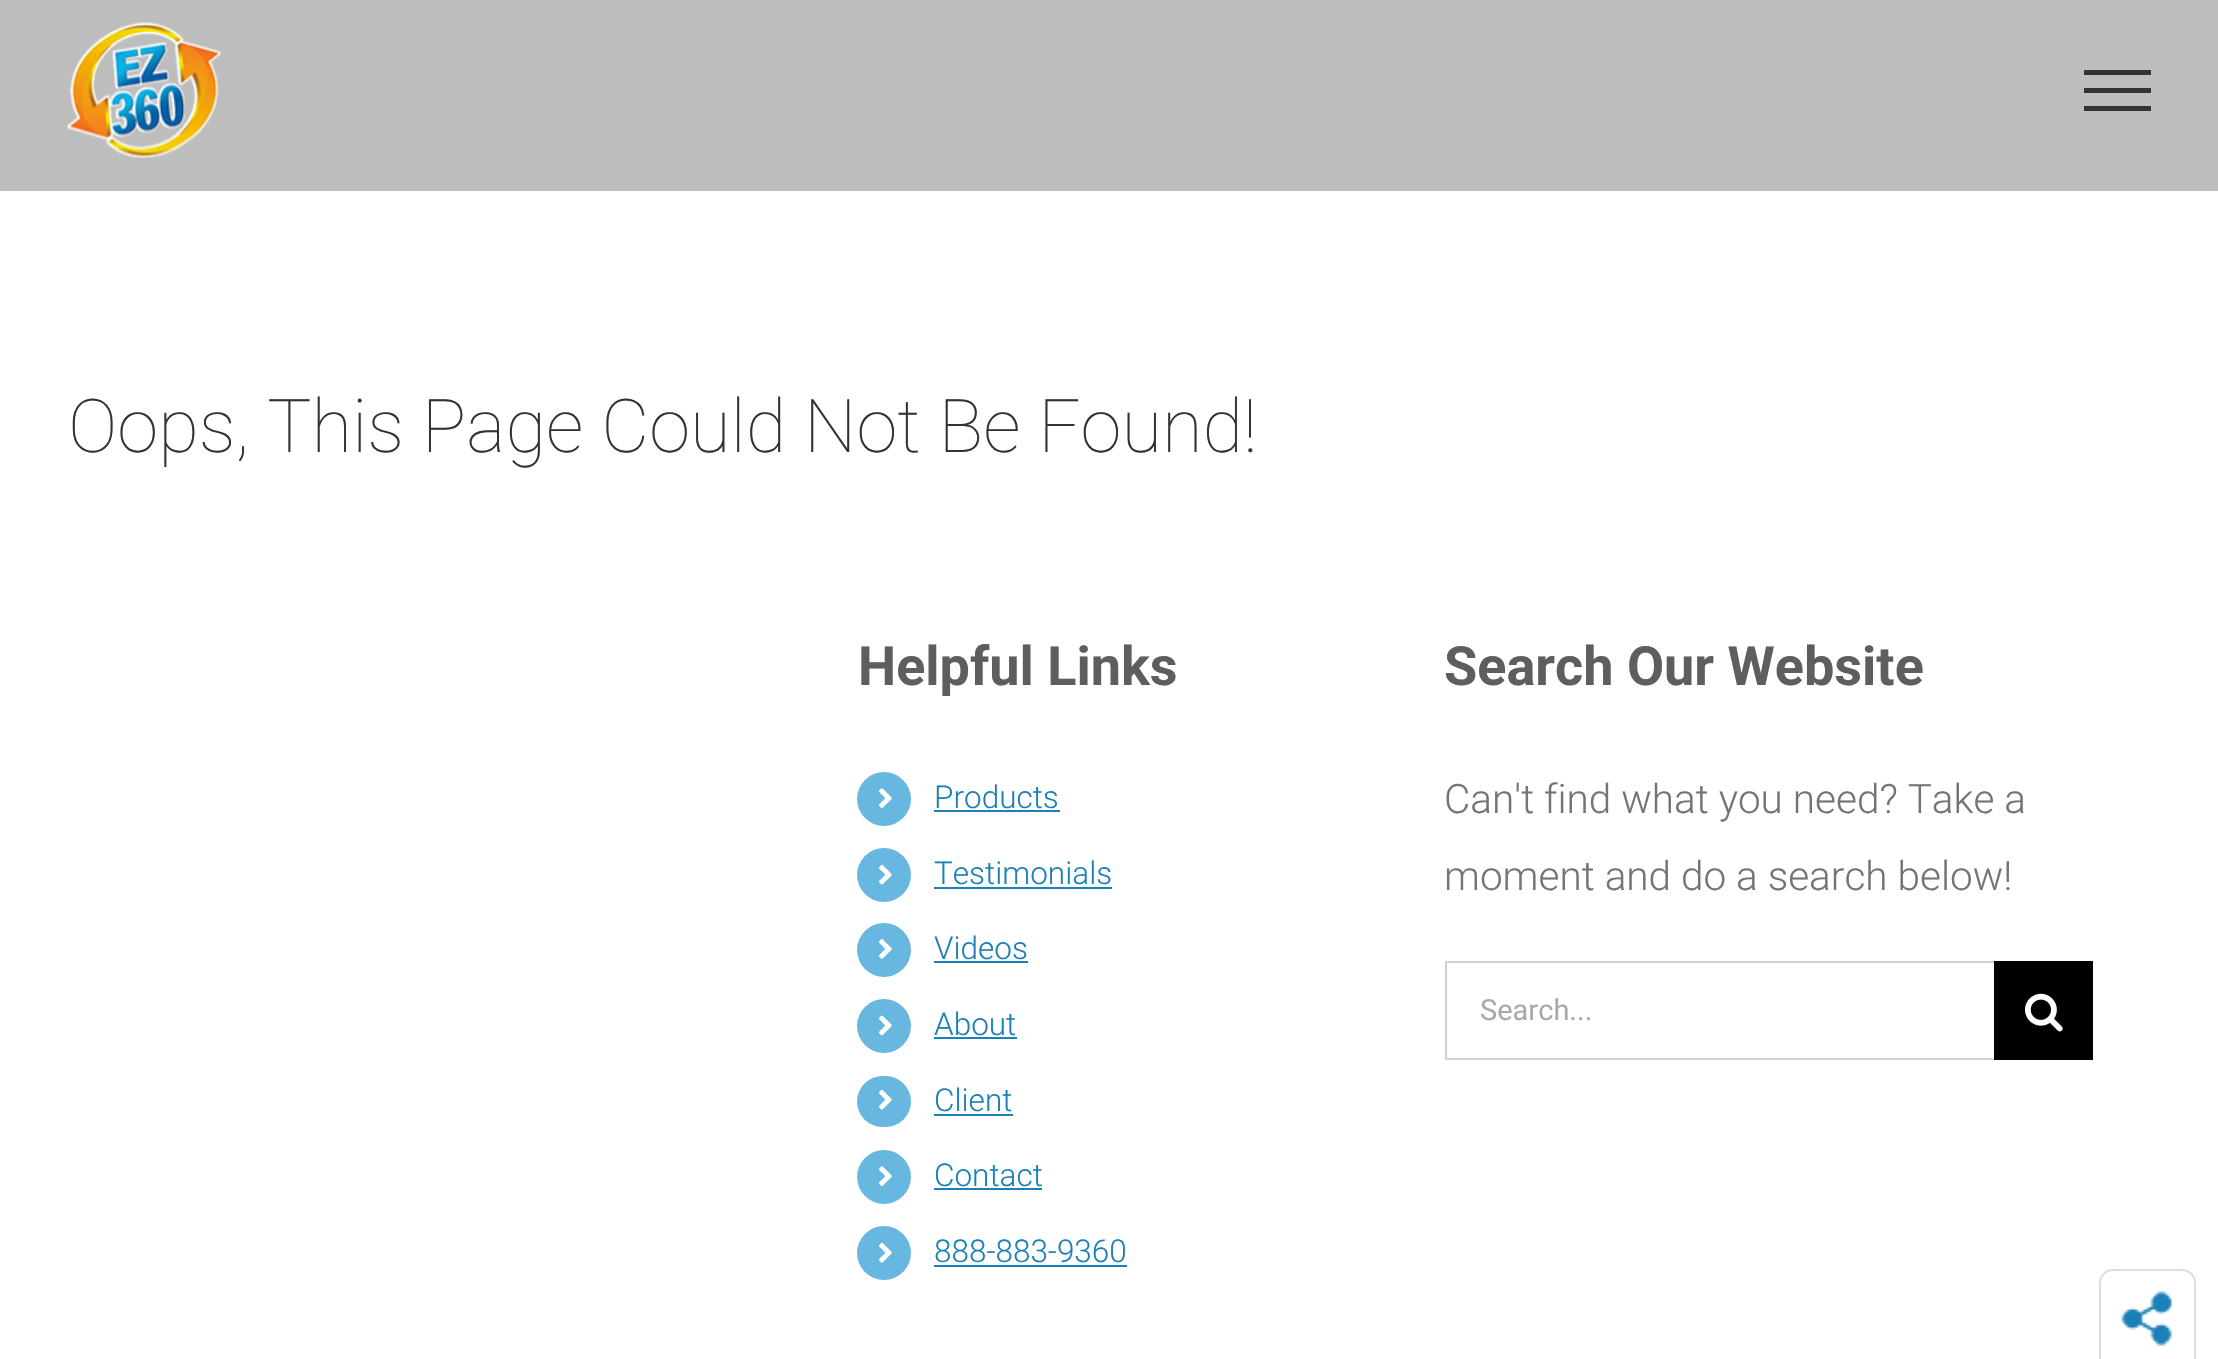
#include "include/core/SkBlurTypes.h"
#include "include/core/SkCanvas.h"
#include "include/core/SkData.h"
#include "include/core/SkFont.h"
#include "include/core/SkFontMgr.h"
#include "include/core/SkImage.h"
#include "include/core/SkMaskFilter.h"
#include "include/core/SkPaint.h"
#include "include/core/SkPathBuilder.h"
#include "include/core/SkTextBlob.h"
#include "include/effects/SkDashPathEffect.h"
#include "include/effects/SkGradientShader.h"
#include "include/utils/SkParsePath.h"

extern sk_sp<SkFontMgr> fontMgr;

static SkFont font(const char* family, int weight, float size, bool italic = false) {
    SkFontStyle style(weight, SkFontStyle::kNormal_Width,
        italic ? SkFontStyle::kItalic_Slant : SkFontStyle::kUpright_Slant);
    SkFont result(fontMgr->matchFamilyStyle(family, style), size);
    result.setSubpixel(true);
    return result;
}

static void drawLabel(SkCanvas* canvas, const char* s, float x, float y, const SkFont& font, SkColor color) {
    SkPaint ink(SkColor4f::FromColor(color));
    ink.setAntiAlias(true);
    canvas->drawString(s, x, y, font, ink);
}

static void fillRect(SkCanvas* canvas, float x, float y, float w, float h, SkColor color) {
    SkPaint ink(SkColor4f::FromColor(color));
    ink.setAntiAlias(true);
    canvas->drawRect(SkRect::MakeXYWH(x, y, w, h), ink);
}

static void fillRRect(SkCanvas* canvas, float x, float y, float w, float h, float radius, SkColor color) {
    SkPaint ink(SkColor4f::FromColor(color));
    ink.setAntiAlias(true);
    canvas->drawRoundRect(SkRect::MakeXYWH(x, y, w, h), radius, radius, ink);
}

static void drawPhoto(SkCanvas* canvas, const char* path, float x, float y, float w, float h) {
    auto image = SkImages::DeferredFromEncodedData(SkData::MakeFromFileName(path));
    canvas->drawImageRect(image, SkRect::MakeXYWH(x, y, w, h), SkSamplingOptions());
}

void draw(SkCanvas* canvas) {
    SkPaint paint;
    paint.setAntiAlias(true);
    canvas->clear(0xFFFFFFFF);
    fillRect(canvas, 0, 0, 2218, 191, 0xFFBDBDBD);
    drawPhoto(canvas, "assets/img1.png", 67, 22, 154, 136);
    fillRect(canvas, 2084, 70, 67, 5, 0xFF333333);
    fillRect(canvas, 2084, 88, 67, 5, 0xFF333333);
    fillRect(canvas, 2084, 106, 67, 5, 0xFF333333);
    SkFont font1 = font("Roboto", 100, 74.1f);
    drawLabel(canvas, "Oops, This Page Could Not Be Found!", 68, 452, font1, 0xFF333333);
    SkFont font2 = font("Roboto", 700, 54);
    drawLabel(canvas, "Helpful Links", 858, 685, font2, 0xFF5E5E5E);
    paint.setColor(0xFF67B7E1);
    canvas->drawCircle(884, 799, 27, paint);
    drawPhoto(canvas, "assets/img2.png", 879, 788, 13, 20);
    SkFont font3 = font("Roboto", 300, 31.5f);
    drawLabel(canvas, "Products", 934, 808, font3, 0xFF1A80B6);
    fillRect(canvas, 934, 810, 126, 2, 0xFF1A80B6);
    canvas->drawCircle(884, 875, 27, paint);
    drawPhoto(canvas, "assets/img3.png", 879, 864, 13, 21);
    drawLabel(canvas, "Testimonials", 934, 884, font3, 0xFF1A80B6);
    fillRect(canvas, 934, 887, 178, 2, 0xFF1A80B6);
    canvas->drawCircle(884, 950, 27, paint);
    drawPhoto(canvas, "assets/img4.png", 879, 939, 13, 20);
    drawLabel(canvas, "Videos", 934, 959, font3, 0xFF1A80B6);
    fillRect(canvas, 934, 961, 94, 2, 0xFF1A80B6);
    canvas->drawCircle(884, 1026, 27, paint);
    drawPhoto(canvas, "assets/img5.png", 879, 1015, 13, 21);
    drawLabel(canvas, "About", 934, 1035, font3, 0xFF1A80B6);
    fillRect(canvas, 934, 1037, 83, 2, 0xFF1A80B6);
    fillRRect(canvas, 857, 1076, 54, 51, 25.5f, 0xFF67B7E1);
    drawPhoto(canvas, "assets/img3.png", 879, 1089, 13, 21);
    drawLabel(canvas, "Client", 934, 1111, font3, 0xFF1A80B6);
    fillRect(canvas, 934, 1114, 79, 2, 0xFF1A80B6);
    canvas->drawCircle(884, 1177, 27, paint);
    drawPhoto(canvas, "assets/img2.png", 879, 1166, 13, 20);
    drawLabel(canvas, "Contact", 934, 1186, font3, 0xFF1A80B6);
    fillRect(canvas, 934, 1188, 108, 2, 0xFF1A80B6);
    canvas->drawCircle(884, 1253, 27, paint);
    drawPhoto(canvas, "assets/img3.png", 879, 1242, 13, 21);
    drawLabel(canvas, "888-883-9360", 934, 1262, font3, 0xFF1A80B6);
    fillRect(canvas, 934, 1265, 193, 2, 0xFF1A80B6);
    drawLabel(canvas, "Search Our Website", 1444, 685, font2, 0xFF5E5E5E);
    SkFont font4 = font("Roboto", 300, 40.5f);
    drawLabel(canvas, "Can't find what you need? Take a", 1444, 813, font4, 0xFF747474);
    drawLabel(canvas, "moment and do a search below!", 1444, 890, font4, 0xFF747474);
    fillRect(canvas, 1445, 961, 549, 2, 0xFFD2D2D2);
    fillRect(canvas, 1445, 1058, 549, 2, 0xFFD2D2D2);
    fillRect(canvas, 1445, 961, 2, 99, 0xFFD2D2D2);
    SkFont font5 = font("Roboto", 400, 29);
    drawLabel(canvas, "Search...", 1480, 1020, font5, 0xFFAAA9A9);
    fillRect(canvas, 1994, 961, 99, 99, 0xFF000000);
    drawPhoto(canvas, "assets/img6.png", 2025, 993, 38, 39);
    paint.setStroke(true);
    paint.setStrokeWidth(2);
    paint.setColor(0xFFDDDDDD);
    canvas->drawRoundRect(SkRect::MakeXYWH(2100, 1270, 95, 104), 13, 13, paint);
    drawPhoto(canvas, "assets/img7.png", 2121, 1291, 51, 56);
}
